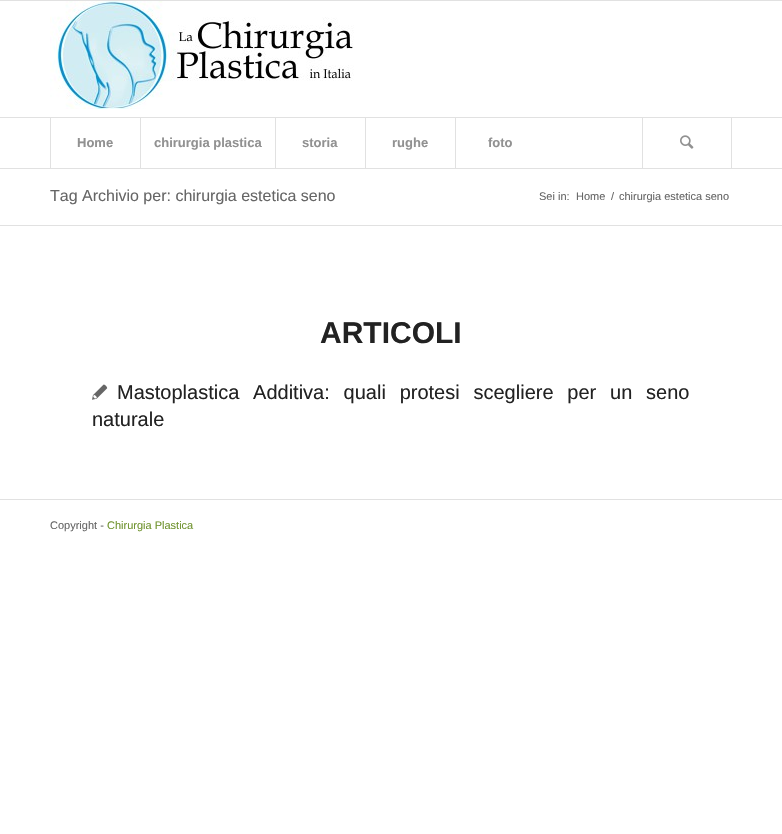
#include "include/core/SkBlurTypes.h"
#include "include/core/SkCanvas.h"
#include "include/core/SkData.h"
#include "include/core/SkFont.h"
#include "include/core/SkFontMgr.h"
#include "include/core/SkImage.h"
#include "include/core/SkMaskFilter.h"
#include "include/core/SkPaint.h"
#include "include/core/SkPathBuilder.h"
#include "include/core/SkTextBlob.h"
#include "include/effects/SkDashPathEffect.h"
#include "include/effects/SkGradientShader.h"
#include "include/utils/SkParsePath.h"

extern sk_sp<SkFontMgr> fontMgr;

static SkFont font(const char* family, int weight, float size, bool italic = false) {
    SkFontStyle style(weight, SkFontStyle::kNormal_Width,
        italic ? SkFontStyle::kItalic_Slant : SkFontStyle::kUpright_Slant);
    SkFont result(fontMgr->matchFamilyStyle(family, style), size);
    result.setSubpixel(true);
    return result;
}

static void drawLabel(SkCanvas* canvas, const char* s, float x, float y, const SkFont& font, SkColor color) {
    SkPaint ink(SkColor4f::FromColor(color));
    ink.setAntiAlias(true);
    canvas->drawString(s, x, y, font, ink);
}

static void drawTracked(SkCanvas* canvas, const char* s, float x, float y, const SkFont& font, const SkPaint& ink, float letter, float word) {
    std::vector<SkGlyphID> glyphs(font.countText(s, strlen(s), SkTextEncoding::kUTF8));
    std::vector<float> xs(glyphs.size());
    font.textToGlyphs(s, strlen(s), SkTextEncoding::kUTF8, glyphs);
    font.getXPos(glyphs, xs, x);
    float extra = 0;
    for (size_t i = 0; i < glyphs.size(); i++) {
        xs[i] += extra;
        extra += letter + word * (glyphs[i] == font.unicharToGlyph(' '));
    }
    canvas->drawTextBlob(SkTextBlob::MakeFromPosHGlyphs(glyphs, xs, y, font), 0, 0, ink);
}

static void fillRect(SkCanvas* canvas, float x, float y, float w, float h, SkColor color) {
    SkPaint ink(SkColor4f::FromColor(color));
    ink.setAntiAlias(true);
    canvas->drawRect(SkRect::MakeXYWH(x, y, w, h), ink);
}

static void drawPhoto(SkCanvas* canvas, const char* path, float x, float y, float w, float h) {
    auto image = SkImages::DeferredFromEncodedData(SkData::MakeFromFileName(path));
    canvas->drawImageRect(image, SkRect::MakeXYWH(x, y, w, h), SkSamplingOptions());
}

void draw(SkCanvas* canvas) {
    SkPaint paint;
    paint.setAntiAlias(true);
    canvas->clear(0xFFFFFFFF);
    fillRect(canvas, 0, 0, 782, 1, 0xFFE1E1E1);
    fillRect(canvas, 0, 168, 782, 1, 0xFFE1E1E1);
    drawPhoto(canvas, "assets/img1.png", 50, 1, 304, 108);
    fillRect(canvas, 0, 117, 782, 1, 0xFFE1E1E1);
    fillRect(canvas, 50, 118, 1, 50, 0xFFE1E1E1);
    SkFont font1 = font("Liberation Sans", 700, 13);
    drawLabel(canvas, "Home", 77, 147, font1, 0xFF919191);
    fillRect(canvas, 140, 118, 1, 50, 0xFFE1E1E1);
    drawLabel(canvas, "chirurgia plastica", 154, 147, font1, 0xFF919191);
    fillRect(canvas, 275, 118, 1, 50, 0xFFE1E1E1);
    drawLabel(canvas, "storia", 302, 147, font1, 0xFF919191);
    fillRect(canvas, 365, 118, 1, 50, 0xFFE1E1E1);
    drawLabel(canvas, "rughe", 392, 147, font1, 0xFF919191);
    fillRect(canvas, 455, 118, 1, 50, 0xFFE1E1E1);
    drawLabel(canvas, "foto", 488, 147, font1, 0xFF919191);
    fillRect(canvas, 731, 118, 1, 50, 0xFFE1E1E1);
    fillRect(canvas, 642, 118, 1, 50, 0xFFE1E1E1);
    drawPhoto(canvas, "assets/img2.png", 680, 135, 14, 14);
    SkFont font2 = font("Liberation Sans", 400, 16);
    drawLabel(canvas, "Tag Archivio per: chirurgia estetica seno", 50, 201, font2, 0xFF666666);
    SkFont font3 = font("Liberation Sans", 400, 11);
    drawLabel(canvas, "Sei in:", 539, 200, font3, 0xFF666666);
    drawLabel(canvas, "Home", 576, 200, font3, 0xFF666666);
    drawLabel(canvas, "/", 611, 200, font3, 0xFF666666);
    drawLabel(canvas, "chirurgia estetica seno", 619, 200, font3, 0xFF666666);
    fillRect(canvas, 0, 225, 782, 1, 0xFFE1E1E1);
    SkFont font4 = font("Liberation Sans", 700, 30);
    drawLabel(canvas, "ARTICOLI", 320, 343, font4, 0xFF222222);
    drawPhoto(canvas, "assets/img3.png", 92, 384, 16, 16);
    SkFont font5 = font("Liberation Sans", 400, 20);
    paint.setColor(0xFF222222);
    drawTracked(canvas, "Mastoplastica Additiva: quali protesi scegliere per un seno", 117, 399, font5, paint, 0, 8.25f);
    drawLabel(canvas, "naturale", 92, 426, font5, 0xFF222222);
    fillRect(canvas, 0, 499, 782, 1, 0xFFE1E1E1);
    drawLabel(canvas, "Copyright -", 50, 529, font3, 0xFF666666);
    drawLabel(canvas, "Chirurgia Plastica", 107, 529, font3, 0xFF719430);
}
